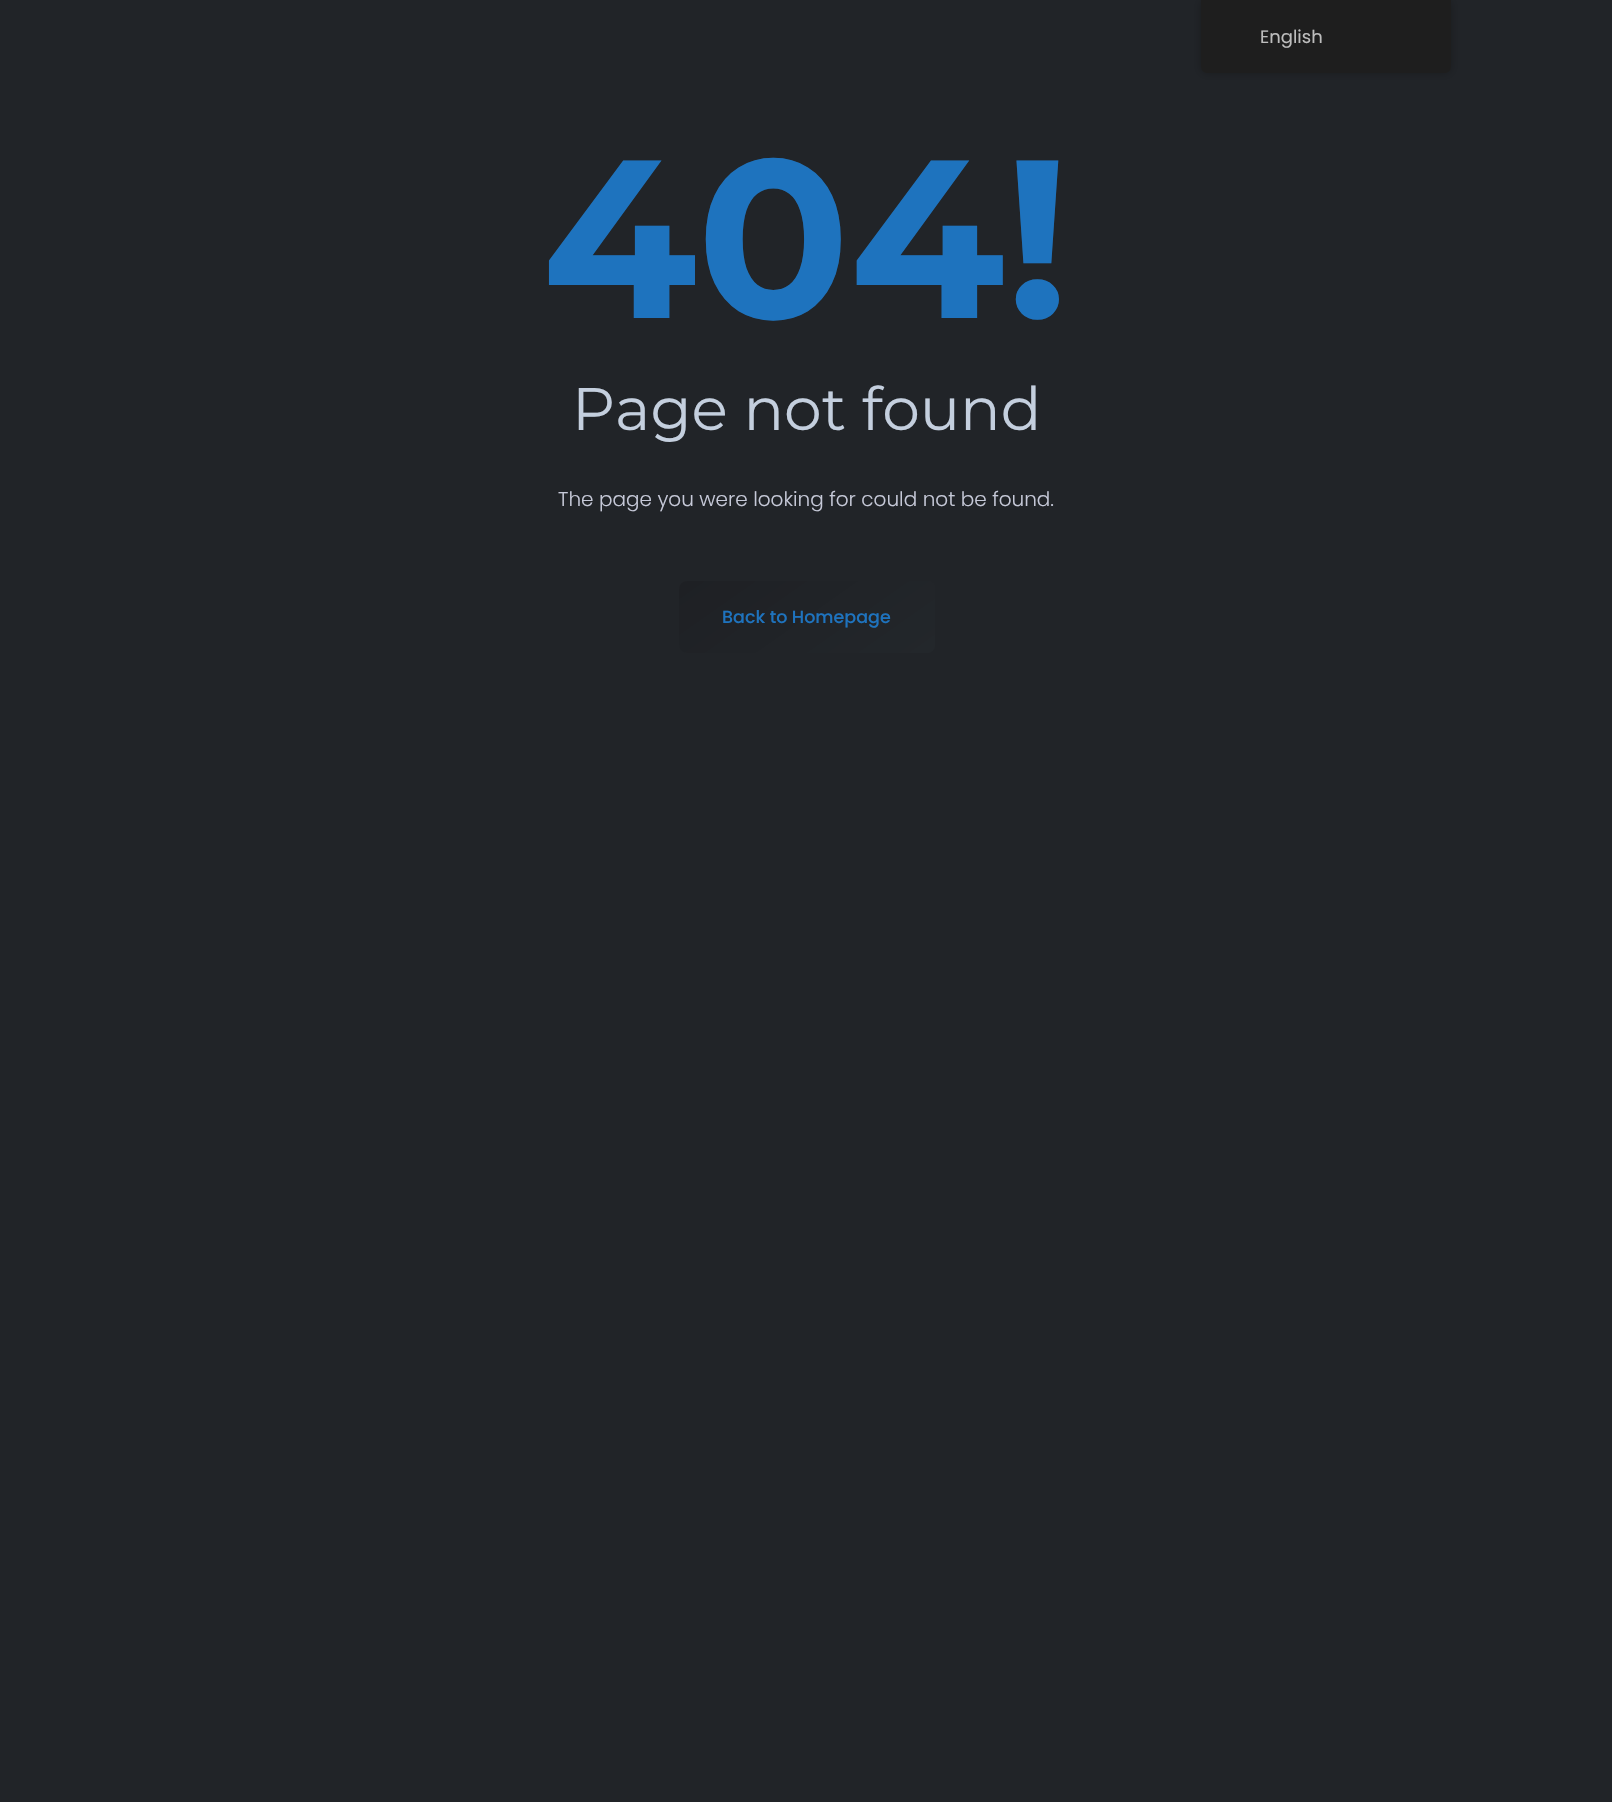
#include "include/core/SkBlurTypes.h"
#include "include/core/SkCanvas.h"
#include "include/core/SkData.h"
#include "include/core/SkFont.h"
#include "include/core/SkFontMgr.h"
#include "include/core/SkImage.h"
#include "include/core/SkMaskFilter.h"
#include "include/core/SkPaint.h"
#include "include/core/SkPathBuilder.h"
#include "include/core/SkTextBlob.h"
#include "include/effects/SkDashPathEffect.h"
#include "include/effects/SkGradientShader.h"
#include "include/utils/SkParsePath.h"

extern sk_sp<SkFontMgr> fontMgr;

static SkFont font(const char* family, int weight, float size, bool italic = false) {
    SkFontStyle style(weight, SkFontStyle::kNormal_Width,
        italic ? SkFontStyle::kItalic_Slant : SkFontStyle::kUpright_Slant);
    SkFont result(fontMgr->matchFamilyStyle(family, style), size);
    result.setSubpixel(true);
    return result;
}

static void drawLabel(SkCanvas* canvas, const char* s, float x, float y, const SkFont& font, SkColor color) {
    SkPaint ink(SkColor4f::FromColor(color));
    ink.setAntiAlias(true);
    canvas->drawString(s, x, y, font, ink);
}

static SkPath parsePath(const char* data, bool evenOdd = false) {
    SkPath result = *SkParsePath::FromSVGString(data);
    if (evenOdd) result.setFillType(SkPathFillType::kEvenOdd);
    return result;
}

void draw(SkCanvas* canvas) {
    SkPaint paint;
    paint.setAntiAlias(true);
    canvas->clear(0xFF212428);
    paint.setColor(0x40000000);
    paint.setMaskFilter(SkMaskFilter::MakeBlur(kNormal_SkBlurStyle, 5));
    canvas->drawRoundRect(SkRect::MakeXYWH(1201, 0, 250, 73), 6, 6, paint);
    paint.setMaskFilter(nullptr);
    paint.setColor(0xFF1E1E1E);
    canvas->drawPath(parsePath("M1201 0H1451V67C1451 70.5 1448.5 73 1445 73H1207C1203.5 73 1201 70.5 1201 67Z"), paint);
    SkFont font1 = font("Poppins", 400, 18);
    drawLabel(canvas, "English", 1260, 43, font1, 0xFFBDBDBD);
    SkFont font2 = font("Montserrat", 700, 225);
    drawLabel(canvas, "404!", 542, 318, font2, 0xFF1E73BE);
    SkFont font3 = font("Montserrat", 400, 60);
    drawLabel(canvas, "Page not found", 572, 430, font3, 0xFFC4CFDE);
    SkFont font4 = font("Poppins", 300, 20);
    drawLabel(canvas, "The page you were looking for could not be found.", 558, 506, font4, 0xFFC6C9D8);
    {
        const SkColor colors[] = {0xFF1E2024, 0xFF23272B};
        const float stops[] = {0, 1};
        const SkPoint ends[] = {{748, 533}, {866, 701}};
        paint.setShader(SkGradientShader::MakeLinear(ends, colors, stops, 2, SkTileMode::kClamp));
        paint.setAlpha(255);
    }
    canvas->drawRoundRect(SkRect::MakeXYWH(679, 581, 256, 72), 8, 8, paint);
    SkFont font5 = font("Poppins", 500, 17.5f);
    drawLabel(canvas, "Back to Homepage", 722, 623, font5, 0xFF1E73BE);
}
